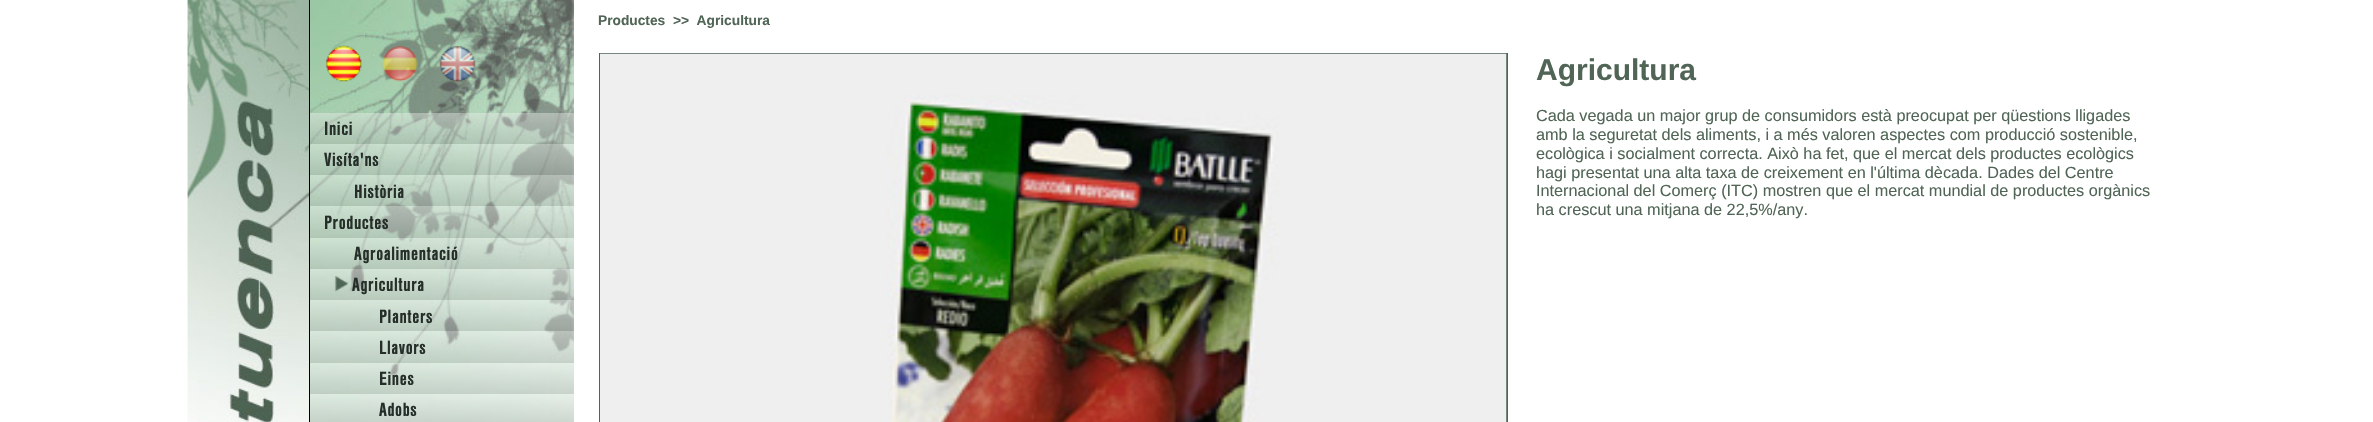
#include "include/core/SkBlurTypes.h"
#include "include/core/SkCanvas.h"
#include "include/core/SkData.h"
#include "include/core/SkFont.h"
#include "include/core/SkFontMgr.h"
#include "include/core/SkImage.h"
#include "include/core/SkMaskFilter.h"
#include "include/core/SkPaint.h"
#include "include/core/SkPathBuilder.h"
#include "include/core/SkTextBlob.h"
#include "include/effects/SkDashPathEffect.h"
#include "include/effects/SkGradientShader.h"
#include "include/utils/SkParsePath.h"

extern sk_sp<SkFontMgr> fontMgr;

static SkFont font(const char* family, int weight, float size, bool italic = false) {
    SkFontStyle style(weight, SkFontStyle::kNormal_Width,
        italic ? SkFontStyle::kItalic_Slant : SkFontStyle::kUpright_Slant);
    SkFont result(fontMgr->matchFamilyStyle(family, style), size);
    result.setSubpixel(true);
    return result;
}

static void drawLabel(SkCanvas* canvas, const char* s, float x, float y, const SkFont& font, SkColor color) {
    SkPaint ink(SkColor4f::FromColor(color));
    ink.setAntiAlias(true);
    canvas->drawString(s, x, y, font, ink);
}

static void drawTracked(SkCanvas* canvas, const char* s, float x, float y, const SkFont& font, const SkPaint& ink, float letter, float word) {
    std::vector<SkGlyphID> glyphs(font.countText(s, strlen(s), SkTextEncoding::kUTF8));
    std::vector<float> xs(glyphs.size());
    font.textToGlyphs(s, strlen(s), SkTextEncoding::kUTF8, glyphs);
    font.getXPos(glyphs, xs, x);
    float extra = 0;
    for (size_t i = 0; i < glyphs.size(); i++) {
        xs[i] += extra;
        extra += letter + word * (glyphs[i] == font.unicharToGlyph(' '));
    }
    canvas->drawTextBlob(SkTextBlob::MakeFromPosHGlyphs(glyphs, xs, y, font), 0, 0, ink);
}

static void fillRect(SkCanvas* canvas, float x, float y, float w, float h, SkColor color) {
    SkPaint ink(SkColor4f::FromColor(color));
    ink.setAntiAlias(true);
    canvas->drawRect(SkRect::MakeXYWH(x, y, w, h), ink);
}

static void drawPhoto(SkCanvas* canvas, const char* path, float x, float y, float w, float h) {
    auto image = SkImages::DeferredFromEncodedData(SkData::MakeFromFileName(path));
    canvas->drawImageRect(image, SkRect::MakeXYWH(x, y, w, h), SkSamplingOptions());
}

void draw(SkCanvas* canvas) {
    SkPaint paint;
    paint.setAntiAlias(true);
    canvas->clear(0xFFFFFFFF);
    fillRect(canvas, 309, 0, 1, 422, 0xFF000000);
    drawPhoto(canvas, "assets/img1.png", 187, 0, 122, 422);
    drawPhoto(canvas, "assets/img2.png", 310, 0, 264, 422);
    drawPhoto(canvas, "assets/img3.png", 310, 59, 1, 9);
    drawPhoto(canvas, "assets/img4.png", 310, 102, 1, 5);
    drawPhoto(canvas, "assets/img5.png", 310, 142, 1, 8);
    drawPhoto(canvas, "assets/img6.png", 310, 288, 1, 16);
    SkFont font1 = font("Liberation Sans", 700, 13.75f);
    drawLabel(canvas, "Productes  >>  Agricultura", 598, 25, font1, 0xFF506555);
    fillRect(canvas, 599, 53, 909, 369, 0xFF506555);
    drawPhoto(canvas, "assets/img7.png", 600, 53, 907, 369);
    SkFont font2 = font("Liberation Sans", 700, 30);
    drawLabel(canvas, "Agricultura", 1536, 80, font2, 0xFF506555);
    SkFont font3 = font("Liberation Sans", 400, 16.25f);
    drawLabel(canvas, "Cada vegada un major grup de consumidors està preocupat per qüestions lligades", 1536, 121, font3, 0xFF506555);
    drawLabel(canvas, "amb la seguretat dels aliments, i a més valoren aspectes com producció sostenible,", 1536, 140, font3, 0xFF506555);
    drawLabel(canvas, "ecològica i socialment correcta. Això ha fet, que el mercat dels productes ecològics", 1536, 159, font3, 0xFF506555);
    drawLabel(canvas, "hagi presentat una alta taxa de creixement en l'última dècada. Dades del Centre", 1536, 178, font3, 0xFF506555);
    drawLabel(canvas, "Internacional del Comerç (ITC) mostren que el mercat mundial de productes orgànics", 1536, 196, font3, 0xFF506555);
    drawLabel(canvas, "ha crescut una mitjana de 22,5%/any.", 1536, 215, font3, 0xFF506555);
    drawPhoto(canvas, "assets/img8.png", 310, 0, 116, 422);
    drawPhoto(canvas, "assets/img9.png", 326, 45, 36, 37);
    drawPhoto(canvas, "assets/img10.png", 382, 46, 36, 36);
    drawPhoto(canvas, "assets/img11.png", 439, 46, 37, 36);
    {
        const SkColor colors[] = {0x66F1F2F1, 0x66A5ACA7};
        const float stops[] = {0, 1};
        const SkPoint ends[] = {{310, 113}, {310, 144}};
        paint.setShader(SkGradientShader::MakeLinear(ends, colors, stops, 2, SkTileMode::kClamp));
        paint.setAlpha(255);
    }
    canvas->drawRect(SkRect::MakeXYWH(310, 113, 264, 31), paint);
    SkFont font4 = font("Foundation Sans", 700, 20);
    paint.setShader(nullptr);
    paint.setColor(0xFF252E29);
    drawTracked(canvas, "Inici", 324, 135, font4, paint, 0.6f, 0);
    {
        const SkColor colors[] = {0x66F1F2F1, 0x66A5ACA7};
        const float stops[] = {0, 1};
        const SkPoint ends[] = {{310, 144}, {310, 175}};
        paint.setShader(SkGradientShader::MakeLinear(ends, colors, stops, 2, SkTileMode::kClamp));
        paint.setAlpha(255);
    }
    canvas->drawRect(SkRect::MakeXYWH(310, 144, 264, 31), paint);
    paint.setShader(nullptr);
    paint.setColor(0xFF252E29);
    drawTracked(canvas, "Visíta'ns", 324, 166, font4, paint, 0.6f, 0);
    {
        const SkColor colors[] = {0x66F1F2F1, 0x66A5ACA7};
        const float stops[] = {0, 1};
        const SkPoint ends[] = {{310, 175}, {310, 206}};
        paint.setShader(SkGradientShader::MakeLinear(ends, colors, stops, 2, SkTileMode::kClamp));
        paint.setAlpha(255);
    }
    canvas->drawRect(SkRect::MakeXYWH(310, 175, 264, 31), paint);
    paint.setShader(nullptr);
    paint.setColor(0xFF252E29);
    drawTracked(canvas, "Història", 354, 198, font4, paint, 0.6f, 0);
    {
        const SkColor colors[] = {0x66F1F2F1, 0x66A5ACA7};
        const float stops[] = {0, 1};
        const SkPoint ends[] = {{310, 206}, {310, 238}};
        paint.setShader(SkGradientShader::MakeLinear(ends, colors, stops, 2, SkTileMode::kClamp));
        paint.setAlpha(255);
    }
    canvas->drawRect(SkRect::MakeXYWH(310, 206, 264, 32), paint);
    paint.setShader(nullptr);
    paint.setColor(0xFF252E29);
    drawTracked(canvas, "Productes", 324, 229, font4, paint, 0.6f, 0);
    {
        const SkColor colors[] = {0x66F1F2F1, 0x66A5ACA7};
        const float stops[] = {0, 1};
        const SkPoint ends[] = {{310, 238}, {310, 269}};
        paint.setShader(SkGradientShader::MakeLinear(ends, colors, stops, 2, SkTileMode::kClamp));
        paint.setAlpha(255);
    }
    canvas->drawRect(SkRect::MakeXYWH(310, 238, 264, 31), paint);
    paint.setShader(nullptr);
    paint.setColor(0xFF252E29);
    drawTracked(canvas, "Agroalimentació", 354, 260, font4, paint, 0.6f, 0);
    {
        const SkColor colors[] = {0x66F1F2F1, 0x66A5ACA7};
        const float stops[] = {0, 1};
        const SkPoint ends[] = {{310, 269}, {310, 300}};
        paint.setShader(SkGradientShader::MakeLinear(ends, colors, stops, 2, SkTileMode::kClamp));
        paint.setAlpha(255);
    }
    canvas->drawRect(SkRect::MakeXYWH(310, 269, 264, 31), paint);
    drawPhoto(canvas, "assets/img12.png", 334, 276, 15, 16);
    paint.setShader(nullptr);
    paint.setColor(0xFF252E29);
    drawTracked(canvas, "Agricultura", 352, 291, font4, paint, 0.6f, 0);
    {
        const SkColor colors[] = {0x66F1F2F1, 0x66A5ACA7};
        const float stops[] = {0, 1};
        const SkPoint ends[] = {{310, 300}, {310, 331}};
        paint.setShader(SkGradientShader::MakeLinear(ends, colors, stops, 2, SkTileMode::kClamp));
        paint.setAlpha(255);
    }
    canvas->drawRect(SkRect::MakeXYWH(310, 300, 264, 31), paint);
    paint.setShader(nullptr);
    paint.setColor(0xFF252E29);
    drawTracked(canvas, "Planters", 379, 323, font4, paint, 0.6f, 0);
    {
        const SkColor colors[] = {0x66F1F2F1, 0x66A5ACA7};
        const float stops[] = {0, 1};
        const SkPoint ends[] = {{310, 331}, {310, 363}};
        paint.setShader(SkGradientShader::MakeLinear(ends, colors, stops, 2, SkTileMode::kClamp));
        paint.setAlpha(255);
    }
    canvas->drawRect(SkRect::MakeXYWH(310, 331, 264, 32), paint);
    paint.setShader(nullptr);
    paint.setColor(0xFF252E29);
    drawTracked(canvas, "Llavors", 379, 354, font4, paint, 0.6f, 0);
    {
        const SkColor colors[] = {0x66F1F2F1, 0x66A5ACA7};
        const float stops[] = {0, 1};
        const SkPoint ends[] = {{310, 363}, {310, 394}};
        paint.setShader(SkGradientShader::MakeLinear(ends, colors, stops, 2, SkTileMode::kClamp));
        paint.setAlpha(255);
    }
    canvas->drawRect(SkRect::MakeXYWH(310, 363, 264, 31), paint);
    paint.setShader(nullptr);
    paint.setColor(0xFF252E29);
    drawTracked(canvas, "Eines", 379, 385, font4, paint, 0.6f, 0);
    {
        const SkColor colors[] = {0x66F1F2F1, 0x66A5ACA7};
        const float stops[] = {0, 1};
        const SkPoint ends[] = {{310, 394}, {310, 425}};
        paint.setShader(SkGradientShader::MakeLinear(ends, colors, stops, 2, SkTileMode::kClamp));
        paint.setAlpha(255);
    }
    canvas->drawRect(SkRect::MakeXYWH(310, 394, 264, 28), paint);
    paint.setShader(nullptr);
    paint.setColor(0xFF252E29);
    drawTracked(canvas, "Adobs", 379, 416, font4, paint, 0.6f, 0);
}
